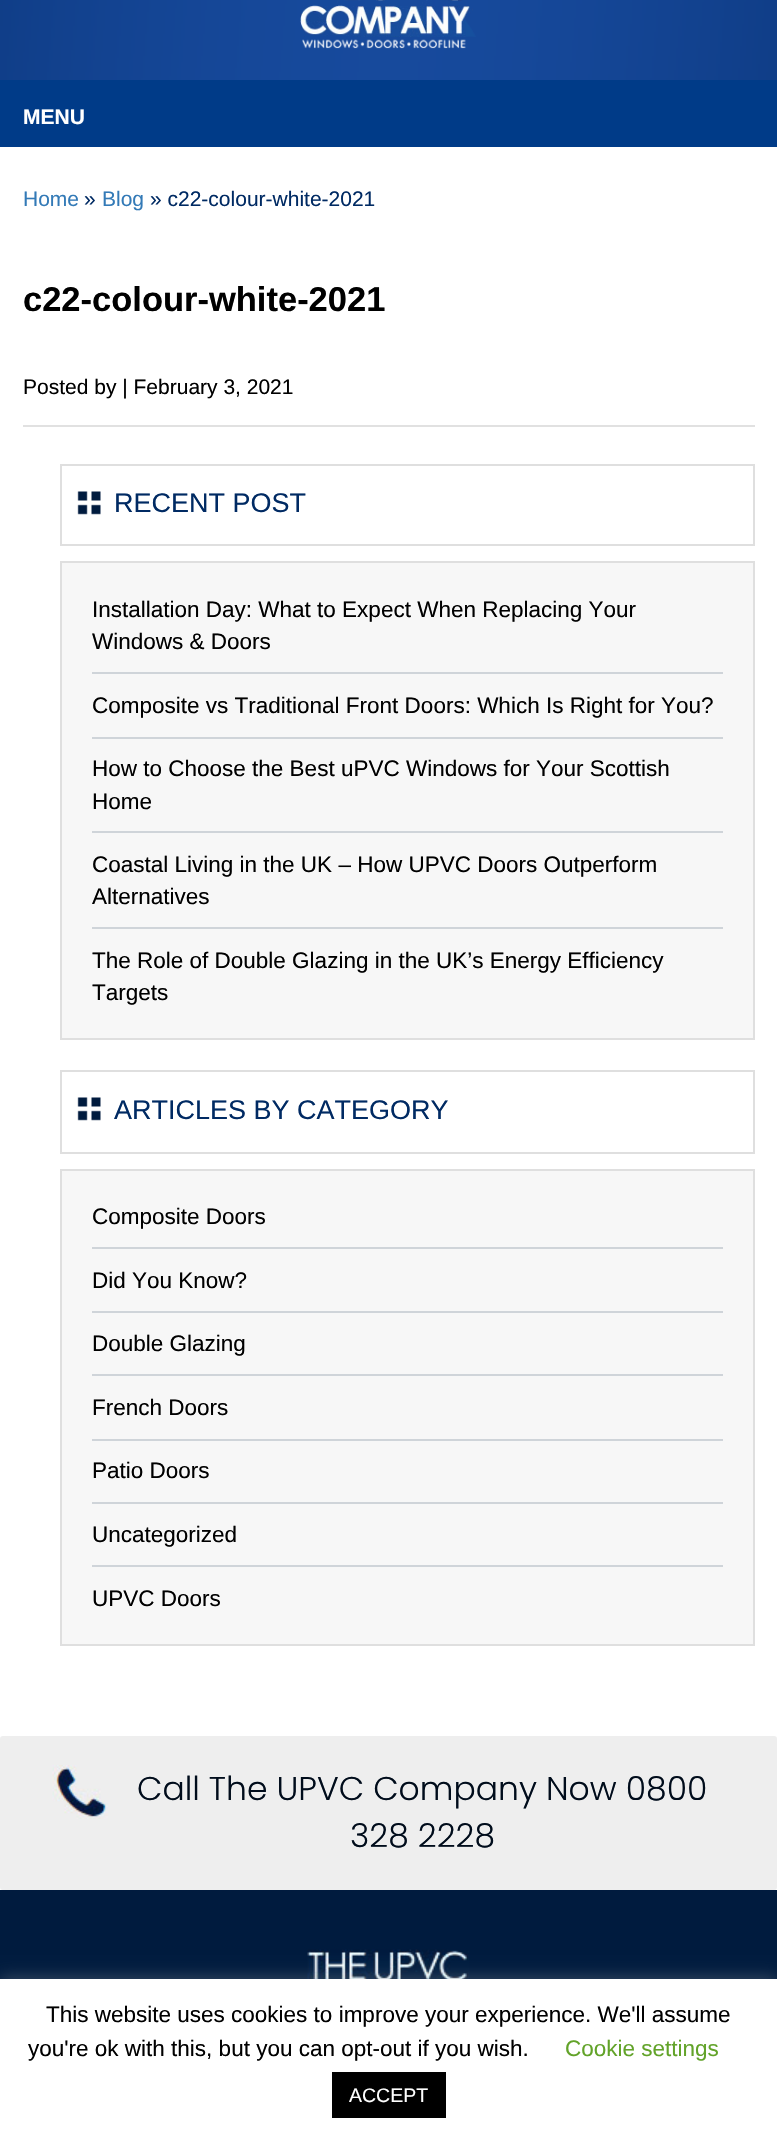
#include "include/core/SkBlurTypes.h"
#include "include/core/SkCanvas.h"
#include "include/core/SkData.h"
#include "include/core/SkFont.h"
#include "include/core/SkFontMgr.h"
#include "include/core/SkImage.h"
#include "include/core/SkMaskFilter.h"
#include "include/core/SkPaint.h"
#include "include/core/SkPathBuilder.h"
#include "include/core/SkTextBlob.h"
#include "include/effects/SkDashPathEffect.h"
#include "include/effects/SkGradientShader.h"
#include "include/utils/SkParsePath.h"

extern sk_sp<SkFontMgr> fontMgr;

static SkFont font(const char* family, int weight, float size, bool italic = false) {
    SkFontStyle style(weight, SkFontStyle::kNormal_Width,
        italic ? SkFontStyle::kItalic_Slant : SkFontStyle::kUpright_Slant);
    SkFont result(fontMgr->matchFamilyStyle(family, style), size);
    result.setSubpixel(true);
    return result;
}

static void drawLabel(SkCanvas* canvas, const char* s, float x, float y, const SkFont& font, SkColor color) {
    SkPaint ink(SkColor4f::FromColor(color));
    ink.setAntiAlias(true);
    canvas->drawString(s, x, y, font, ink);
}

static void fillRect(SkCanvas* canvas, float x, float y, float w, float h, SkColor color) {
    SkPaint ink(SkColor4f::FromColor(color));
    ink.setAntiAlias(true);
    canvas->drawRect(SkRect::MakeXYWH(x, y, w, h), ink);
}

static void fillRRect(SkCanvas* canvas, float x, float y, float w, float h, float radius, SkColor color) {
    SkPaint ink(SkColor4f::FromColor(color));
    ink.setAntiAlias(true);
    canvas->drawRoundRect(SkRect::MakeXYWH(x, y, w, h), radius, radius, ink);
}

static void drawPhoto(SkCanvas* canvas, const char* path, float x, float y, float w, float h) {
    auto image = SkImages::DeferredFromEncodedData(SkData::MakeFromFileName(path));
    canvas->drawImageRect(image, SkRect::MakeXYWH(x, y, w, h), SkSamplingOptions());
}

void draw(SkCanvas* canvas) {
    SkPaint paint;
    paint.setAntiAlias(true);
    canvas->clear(0xFFFFFFFF);
    drawPhoto(canvas, "assets/img1.png", 0, 0, 777, 80);
    drawPhoto(canvas, "assets/img2.png", 300, 0, 176, 49);
    fillRect(canvas, 0, 80, 777, 67, 0xFF003B88);
    SkFont font1 = font("Liberation Sans", 700, 21);
    drawLabel(canvas, "MENU", 23, 124, font1, 0xFFFFFFFF);
    SkFont font2 = font("Liberation Sans", 400, 21);
    drawLabel(canvas, "Home", 23, 206, font2, 0xFF337AB7);
    drawLabel(canvas, "»", 84, 206, font2, 0xFF002A63);
    drawLabel(canvas, "Blog", 102, 206, font2, 0xFF337AB7);
    drawLabel(canvas, "» c22-colour-white-2021", 150, 206, font2, 0xFF002A63);
    SkFont font3 = font("Liberation Sans", 700, 34.5f);
    drawLabel(canvas, "c22-colour-white-2021", 23, 311, font3, 0xFF000000);
    fillRect(canvas, 23, 425, 732, 2, 0xFFE1E1E1);
    drawLabel(canvas, "Posted by | February 3, 2021", 23, 394, font2, 0xFF000000);
    paint.setStroke(true);
    paint.setStrokeWidth(2);
    paint.setColor(0xFFDFDFDF);
    canvas->drawRect(SkRect::MakeXYWH(61, 465, 693, 80), paint);
    drawPhoto(canvas, "assets/img3.png", 77, 491, 24, 24);
    SkFont font4 = font("Liberation Sans", 400, 27);
    drawLabel(canvas, "RECENT POST", 114, 512, font4, 0xFF002A63);
    paint.setStroke(false);
    paint.setColor(0xFFF7F7F7);
    canvas->drawRect(SkRect::MakeXYWH(61, 562, 693, 477), paint);
    paint.setStroke(true);
    paint.setColor(0xFFDFDFDF);
    canvas->drawRect(SkRect::MakeXYWH(61, 562, 693, 477), paint);
    fillRect(canvas, 92, 672, 631, 2, 0xFFCFD4D9);
    SkFont font5 = font("Liberation Sans", 400, 22.5f);
    drawLabel(canvas, "Installation Day: What to Expect When Replacing Your", 92, 617, font5, 0xFF000000);
    drawLabel(canvas, "Windows & Doors", 92, 649, font5, 0xFF000000);
    fillRect(canvas, 92, 737, 631, 2, 0xFFCFD4D9);
    drawLabel(canvas, "Composite vs Traditional Front Doors: Which Is Right for You?", 92, 713, font5, 0xFF000000);
    fillRect(canvas, 92, 831, 631, 2, 0xFFCFD4D9);
    drawLabel(canvas, "How to Choose the Best uPVC Windows for Your Scottish", 92, 776, font5, 0xFF000000);
    drawLabel(canvas, "Home", 92, 809, font5, 0xFF000000);
    fillRect(canvas, 92, 927, 631, 2, 0xFFCFD4D9);
    drawLabel(canvas, "Coastal Living in the UK – How UPVC Doors Outperform", 92, 872, font5, 0xFF000000);
    drawLabel(canvas, "Alternatives", 92, 904, font5, 0xFF000000);
    drawLabel(canvas, "The Role of Double Glazing in the UK’s Energy Efficiency", 92, 968, font5, 0xFF000000);
    drawLabel(canvas, "Targets", 92, 1000, font5, 0xFF000000);
    canvas->drawRect(SkRect::MakeXYWH(61, 1071, 693, 82), paint);
    drawPhoto(canvas, "assets/img3.png", 77, 1097, 24, 24);
    drawLabel(canvas, "ARTICLES BY CATEGORY", 114, 1119, font4, 0xFF002A63);
    paint.setStroke(false);
    paint.setColor(0xFFF7F7F7);
    canvas->drawRect(SkRect::MakeXYWH(61, 1170, 693, 475), paint);
    paint.setStroke(true);
    paint.setColor(0xFFDFDFDF);
    canvas->drawRect(SkRect::MakeXYWH(61, 1170, 693, 475), paint);
    fillRect(canvas, 92, 1247, 631, 2, 0xFFCFD4D9);
    drawLabel(canvas, "Composite Doors", 92, 1224, font5, 0xFF000000);
    fillRect(canvas, 92, 1311, 631, 2, 0xFFCFD4D9);
    drawLabel(canvas, "Did You Know?", 92, 1288, font5, 0xFF000000);
    fillRect(canvas, 92, 1374, 631, 2, 0xFFCFD4D9);
    drawLabel(canvas, "Double Glazing", 92, 1351, font5, 0xFF000000);
    fillRect(canvas, 92, 1439, 631, 2, 0xFFCFD4D9);
    drawLabel(canvas, "French Doors", 92, 1415, font5, 0xFF000000);
    fillRect(canvas, 92, 1502, 631, 2, 0xFFCFD4D9);
    drawLabel(canvas, "Patio Doors", 92, 1478, font5, 0xFF000000);
    fillRect(canvas, 92, 1565, 631, 2, 0xFFCFD4D9);
    drawLabel(canvas, "Uncategorized", 92, 1542, font5, 0xFF000000);
    drawLabel(canvas, "UPVC Doors", 92, 1606, font5, 0xFF000000);
    fillRRect(canvas, 0, 1736, 777, 154, 3, 0xFFEEEEEE);
    drawPhoto(canvas, "assets/img4.png", 52, 1765, 56, 54);
    SkFont font6 = font("Poppins", 300, 33);
    drawLabel(canvas, "Call The UPVC Company Now 0800", 137, 1800, font6, 0xFF000C1B);
    drawLabel(canvas, "328 2228", 350, 1847, font6, 0xFF000C1B);
    fillRect(canvas, 0, 1890, 777, 89, 0xFF001B3E);
    drawPhoto(canvas, "assets/img5.png", 307, 1949, 162, 30);
    paint.setStroke(false);
    paint.setColor(0x4DACABAB);
    paint.setMaskFilter(SkMaskFilter::MakeBlur(kNormal_SkBlurStyle, 7.5f));
    canvas->drawRect(SkRect::MakeXYWH(0, 1977, 777, 165), paint);
    paint.setMaskFilter(nullptr);
    fillRect(canvas, 0, 1979, 777, 164, 0xFFFFFFFF);
    drawLabel(canvas, "This website uses cookies to improve your experience. We'll assume", 46, 2022, font5, 0xFF000000);
    drawLabel(canvas, "you're ok with this, but you can opt-out if you wish.", 28, 2056, font5, 0xFF000000);
    drawLabel(canvas, "Cookie settings", 565, 2056, font5, 0xFF62A329);
    fillRect(canvas, 332, 2072, 114, 46, 0xFF000000);
    SkFont font7 = font("Liberation Sans", 400, 19.5f);
    drawLabel(canvas, "ACCEPT", 349, 2102, font7, 0xFFFFFFFF);
}
